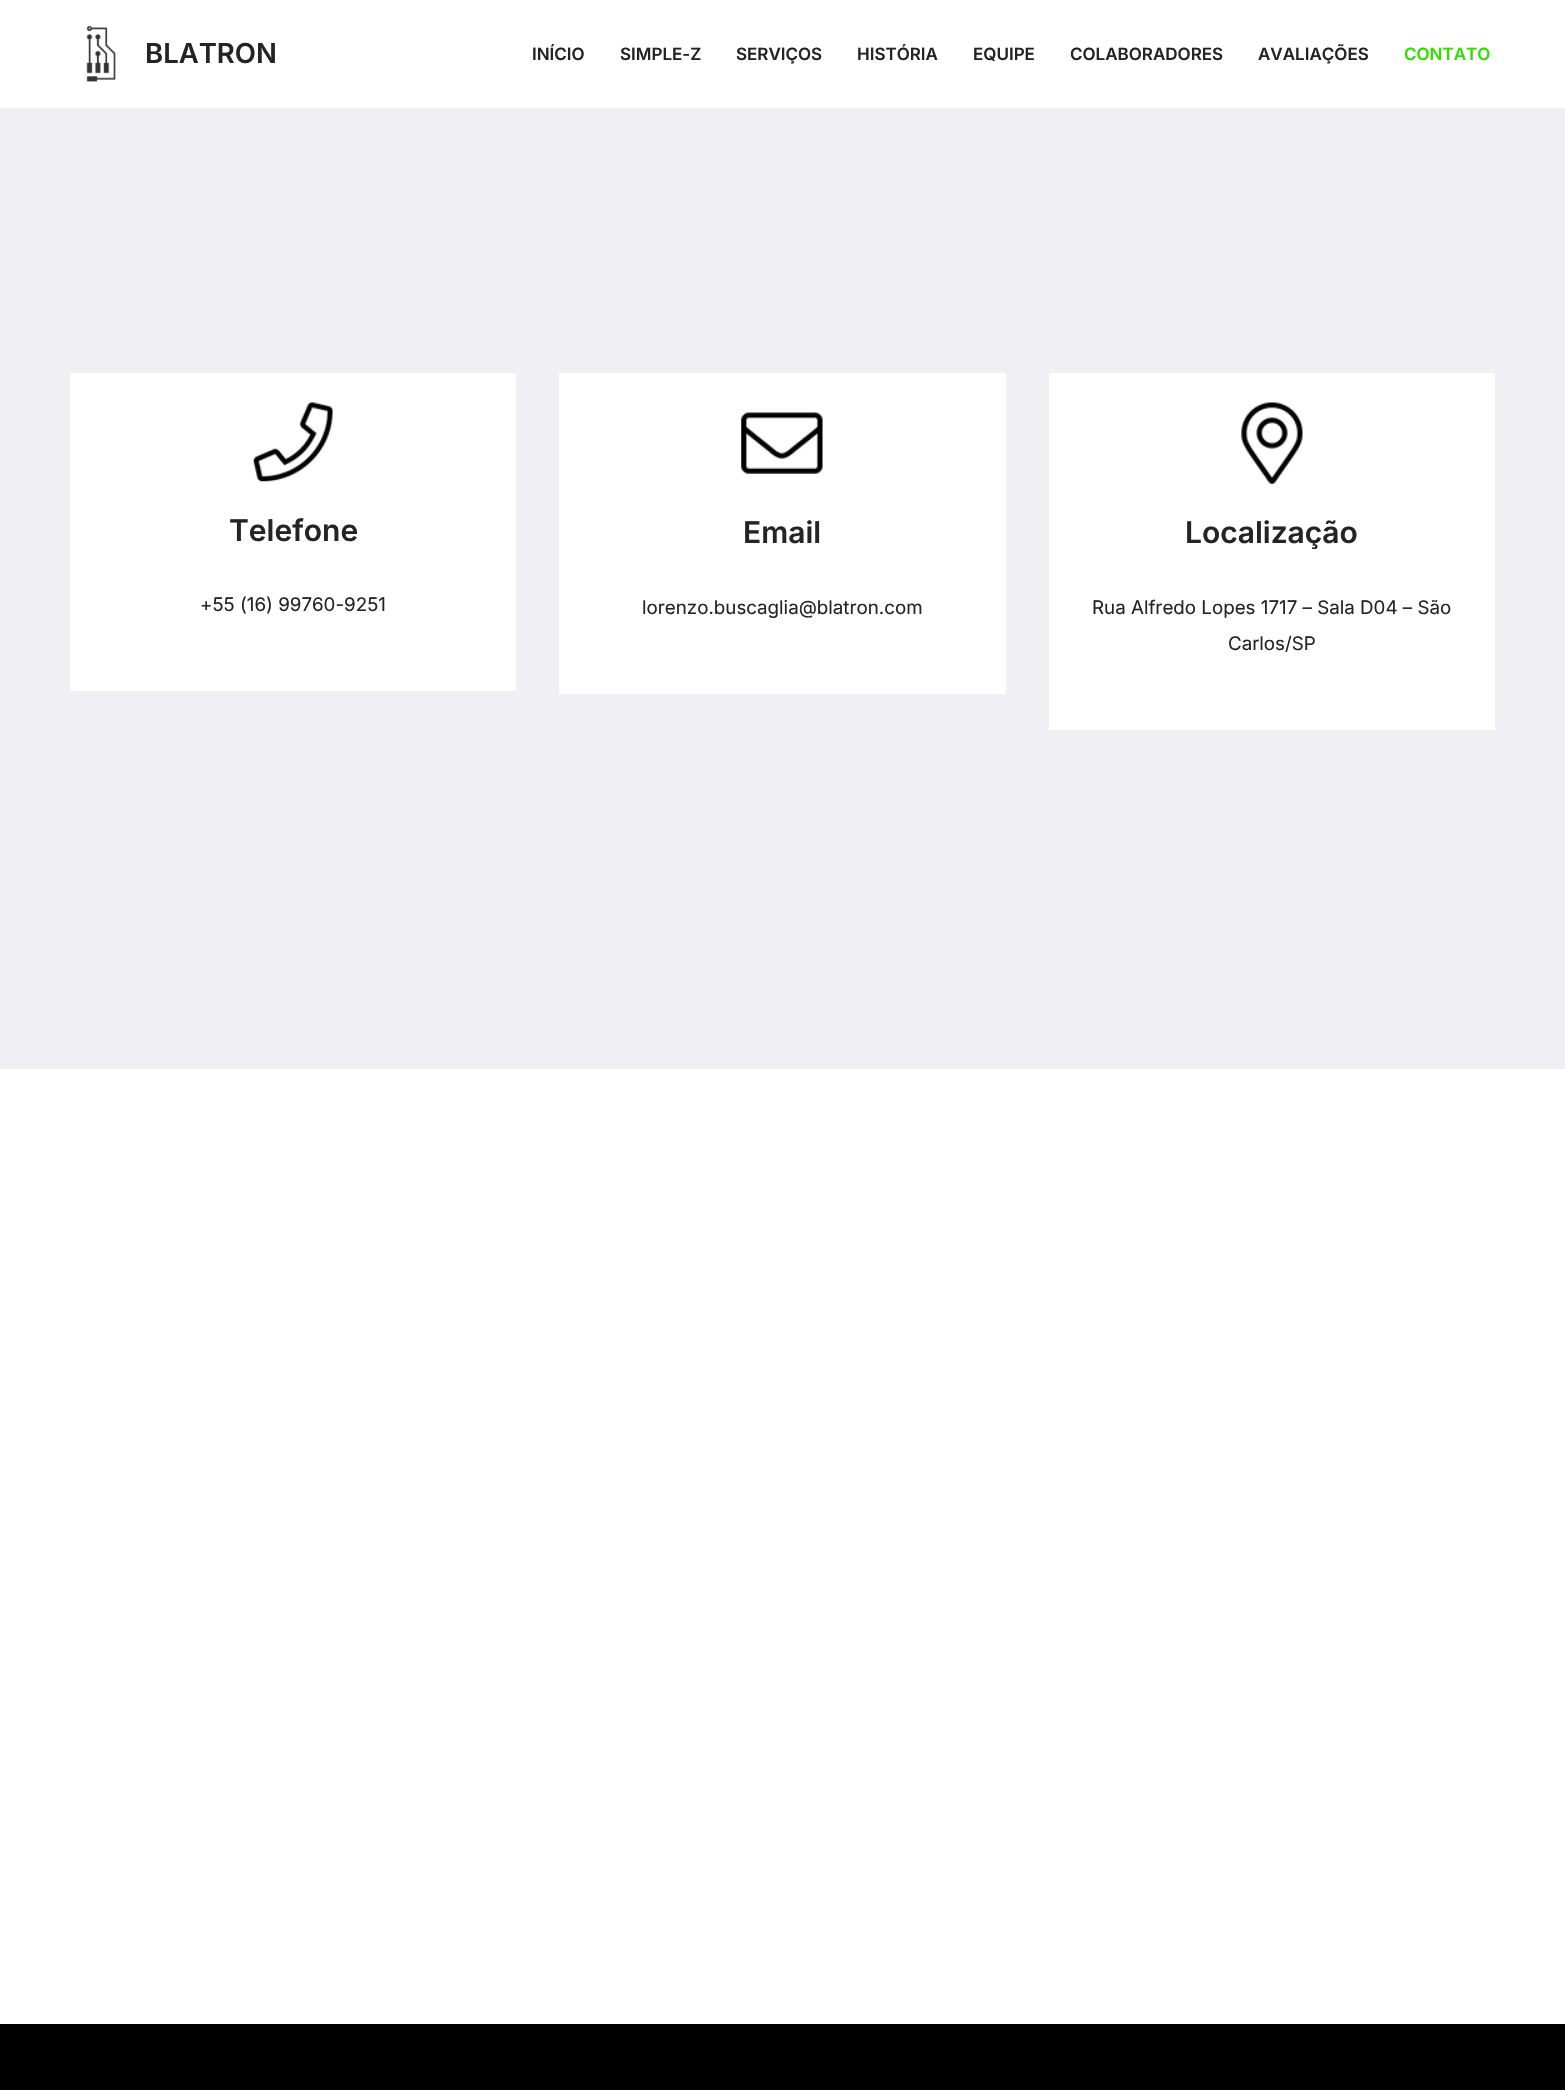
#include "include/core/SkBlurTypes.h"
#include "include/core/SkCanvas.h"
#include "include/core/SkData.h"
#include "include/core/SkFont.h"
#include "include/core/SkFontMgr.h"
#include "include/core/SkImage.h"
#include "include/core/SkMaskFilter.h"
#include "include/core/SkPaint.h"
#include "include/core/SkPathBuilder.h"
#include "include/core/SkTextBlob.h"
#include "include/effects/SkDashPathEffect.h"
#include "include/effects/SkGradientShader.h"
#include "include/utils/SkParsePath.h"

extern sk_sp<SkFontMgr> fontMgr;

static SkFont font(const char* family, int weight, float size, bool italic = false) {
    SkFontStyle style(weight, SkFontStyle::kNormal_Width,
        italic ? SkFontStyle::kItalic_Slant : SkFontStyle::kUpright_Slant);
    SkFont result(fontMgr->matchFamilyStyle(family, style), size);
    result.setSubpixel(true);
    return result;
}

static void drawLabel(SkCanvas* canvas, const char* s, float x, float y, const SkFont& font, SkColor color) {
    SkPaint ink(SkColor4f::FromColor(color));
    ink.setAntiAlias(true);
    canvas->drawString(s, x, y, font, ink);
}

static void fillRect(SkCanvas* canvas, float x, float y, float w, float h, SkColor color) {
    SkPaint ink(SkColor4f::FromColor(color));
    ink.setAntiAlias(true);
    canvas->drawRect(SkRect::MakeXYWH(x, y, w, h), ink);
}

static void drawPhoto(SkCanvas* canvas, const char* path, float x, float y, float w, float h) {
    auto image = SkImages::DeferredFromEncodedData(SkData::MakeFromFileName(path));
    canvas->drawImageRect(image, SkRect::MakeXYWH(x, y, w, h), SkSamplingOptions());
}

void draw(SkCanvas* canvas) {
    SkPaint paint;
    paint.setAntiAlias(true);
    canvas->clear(0xFFFFFFFF);
    drawPhoto(canvas, "assets/img1.png", 86, 25, 30, 57);
    SkFont font1 = font("Inter", 600, 27.5f);
    drawLabel(canvas, "BLATRON", 145, 63, font1, 0xFF242424);
    SkFont font2 = font("Inter", 600, 17);
    drawLabel(canvas, "INÍCIO", 532, 60, font2, 0xFF242424);
    drawLabel(canvas, "SIMPLE-Z", 620, 60, font2, 0xFF242424);
    drawLabel(canvas, "SERVIÇOS", 736, 60, font2, 0xFF242424);
    drawLabel(canvas, "HISTÓRIA", 857, 60, font2, 0xFF242424);
    drawLabel(canvas, "EQUIPE", 973, 60, font2, 0xFF242424);
    drawLabel(canvas, "COLABORADORES", 1070, 60, font2, 0xFF242424);
    drawLabel(canvas, "AVALIAÇÕES", 1258, 60, font2, 0xFF242424);
    drawLabel(canvas, "CONTATO", 1404, 60, font2, 0xFF33DD00);
    fillRect(canvas, 0, 108, 1565, 961, 0xFFF0EFF4);
    fillRect(canvas, 70, 373, 446, 318, 0xFFFFFFFF);
    drawPhoto(canvas, "assets/img2.png", 253, 402, 80, 80);
    SkFont font3 = font("Inter", 600, 30);
    drawLabel(canvas, "Telefone", 229, 541, font3, 0xFF242424);
    SkFont font4 = font("Inter", 400, 18.75f);
    drawLabel(canvas, "+55 (16) 99760-9251", 200, 611, font4, 0xFF242424);
    fillRect(canvas, 559, 373, 447, 321, 0xFFFFFFFF);
    drawPhoto(canvas, "assets/img3.png", 741, 412, 82, 62);
    drawLabel(canvas, "Email", 743, 543, font3, 0xFF242424);
    drawLabel(canvas, "lorenzo.buscaglia@blatron.com", 642, 614, font4, 0xFF242424);
    fillRect(canvas, 1049, 373, 446, 357, 0xFFFFFFFF);
    drawPhoto(canvas, "assets/img4.png", 1241, 402, 62, 82);
    drawLabel(canvas, "Localização", 1185, 543, font3, 0xFF242424);
    drawLabel(canvas, "Rua Alfredo Lopes 1717 – Sala D04 – São", 1092, 614, font4, 0xFF242424);
    drawLabel(canvas, "Carlos/SP", 1228, 650, font4, 0xFF242424);
    fillRect(canvas, 0, 2024, 1565, 66, 0xFF000000);
}
